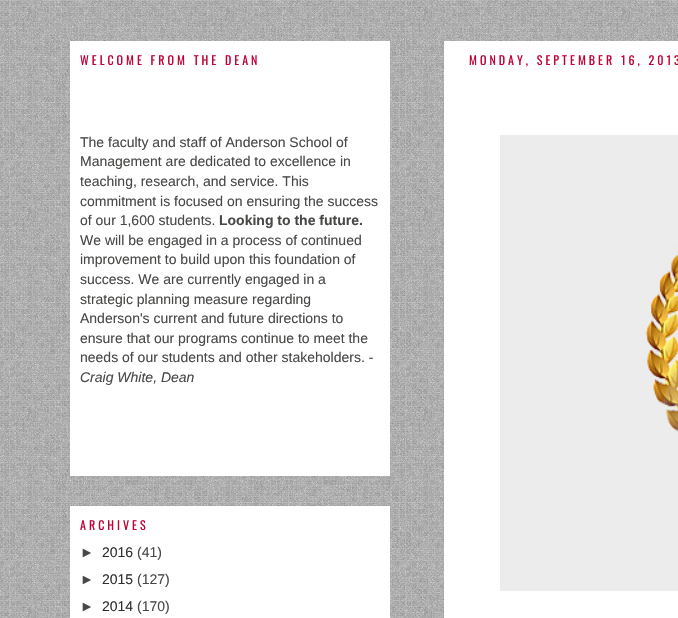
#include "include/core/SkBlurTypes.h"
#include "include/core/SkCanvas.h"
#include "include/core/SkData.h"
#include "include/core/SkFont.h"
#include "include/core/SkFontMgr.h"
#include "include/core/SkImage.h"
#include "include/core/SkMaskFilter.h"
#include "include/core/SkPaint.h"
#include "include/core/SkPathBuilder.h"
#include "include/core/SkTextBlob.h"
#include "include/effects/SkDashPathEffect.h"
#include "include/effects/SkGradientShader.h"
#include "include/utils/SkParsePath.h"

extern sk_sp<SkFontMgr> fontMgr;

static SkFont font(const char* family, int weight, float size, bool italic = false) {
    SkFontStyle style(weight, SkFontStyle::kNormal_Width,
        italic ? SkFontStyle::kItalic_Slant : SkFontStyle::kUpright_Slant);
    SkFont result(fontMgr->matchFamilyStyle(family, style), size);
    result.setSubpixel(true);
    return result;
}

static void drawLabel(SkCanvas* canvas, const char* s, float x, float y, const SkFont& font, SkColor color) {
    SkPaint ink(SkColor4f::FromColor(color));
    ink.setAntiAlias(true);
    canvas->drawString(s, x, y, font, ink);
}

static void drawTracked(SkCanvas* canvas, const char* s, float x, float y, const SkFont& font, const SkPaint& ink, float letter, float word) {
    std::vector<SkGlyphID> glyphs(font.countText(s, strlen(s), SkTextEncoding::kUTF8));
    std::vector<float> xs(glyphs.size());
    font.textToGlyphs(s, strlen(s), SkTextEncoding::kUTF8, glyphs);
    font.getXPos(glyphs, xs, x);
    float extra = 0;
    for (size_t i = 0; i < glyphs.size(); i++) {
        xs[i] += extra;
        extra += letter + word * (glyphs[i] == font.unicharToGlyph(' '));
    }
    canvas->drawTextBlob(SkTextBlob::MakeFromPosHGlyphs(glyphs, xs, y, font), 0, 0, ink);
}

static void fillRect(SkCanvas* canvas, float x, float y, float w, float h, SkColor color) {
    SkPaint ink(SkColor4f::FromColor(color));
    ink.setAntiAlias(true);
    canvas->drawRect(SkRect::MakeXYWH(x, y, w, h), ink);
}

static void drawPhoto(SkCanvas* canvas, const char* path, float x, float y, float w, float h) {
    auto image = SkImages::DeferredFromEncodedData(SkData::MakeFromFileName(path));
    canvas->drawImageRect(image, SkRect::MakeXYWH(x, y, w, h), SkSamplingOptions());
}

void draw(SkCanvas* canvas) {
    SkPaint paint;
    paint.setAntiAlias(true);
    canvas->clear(0xFFFFFFFF);
    drawPhoto(canvas, "assets/img1.png", 0, 221, 444, 397);
    drawPhoto(canvas, "assets/img2.png", 0, 0, 678, 221);
    fillRect(canvas, 70, 41, 320, 435, 0xFFFFFFFF);
    SkFont font1 = font("Oswald", 400, 12);
    paint.setColor(0xFFC10037);
    drawTracked(canvas, "WELCOME FROM THE DEAN", 80, 65, font1, paint, 3, 0);
    SkFont font2 = font("Liberation Sans", 400, 14);
    drawLabel(canvas, "The faculty and staff of Anderson School of", 80, 147, font2, 0xFF484847);
    drawLabel(canvas, "Management are dedicated to excellence in", 80, 166, font2, 0xFF484847);
    drawLabel(canvas, "teaching, research, and service. This", 80, 186, font2, 0xFF484847);
    drawLabel(canvas, "commitment is focused on ensuring the success", 80, 206, font2, 0xFF484847);
    drawLabel(canvas, "of our 1,600 students.", 80, 225, font2, 0xFF484847);
    SkFont font3 = font("Liberation Sans", 700, 14);
    drawLabel(canvas, "Looking to the future.", 219, 225, font3, 0xFF484847);
    drawLabel(canvas, "We will be engaged in a process of continued", 80, 245, font2, 0xFF484847);
    drawLabel(canvas, "improvement to build upon this foundation of", 80, 264, font2, 0xFF484847);
    drawLabel(canvas, "success. We are currently engaged in a", 80, 284, font2, 0xFF484847);
    drawLabel(canvas, "strategic planning measure regarding", 80, 304, font2, 0xFF484847);
    drawLabel(canvas, "Anderson's current and future directions to", 80, 323, font2, 0xFF484847);
    drawLabel(canvas, "ensure that our programs continue to meet the", 80, 343, font2, 0xFF484847);
    drawLabel(canvas, "needs of our students and other stakeholders. -", 80, 362, font2, 0xFF484847);
    SkFont font4 = font("Liberation Sans", 400, 14, true);
    drawLabel(canvas, "Craig White, Dean", 80, 382, font4, 0xFF484847);
    fillRect(canvas, 70, 506, 320, 112, 0xFFFFFFFF);
    drawTracked(canvas, "ARCHIVES", 80, 530, font1, paint, 3, 0);
    drawLabel(canvas, "►", 80, 557, font2, 0xFF484847);
    drawLabel(canvas, "2016", 102, 557, font2, 0xFF2E2E2E);
    drawLabel(canvas, "(41)", 137, 557, font2, 0xFF484847);
    drawLabel(canvas, "►", 80, 584, font2, 0xFF484847);
    drawLabel(canvas, "2015", 102, 584, font2, 0xFF2E2E2E);
    drawLabel(canvas, "(127)", 137, 584, font2, 0xFF484847);
    drawLabel(canvas, "►", 80, 611, font2, 0xFF484847);
    drawLabel(canvas, "2014", 102, 611, font2, 0xFF2E2E2E);
    drawLabel(canvas, "(170)", 137, 611, font2, 0xFF484847);
    fillRect(canvas, 444, 41, 234, 180, 0xFFFFFFFF);
    drawTracked(canvas, "MONDAY, SEPTEMBER 16, 2013", 469, 65, font1, paint, 3, 0);
    drawPhoto(canvas, "assets/img3.png", 500, 135, 178, 456);
}
